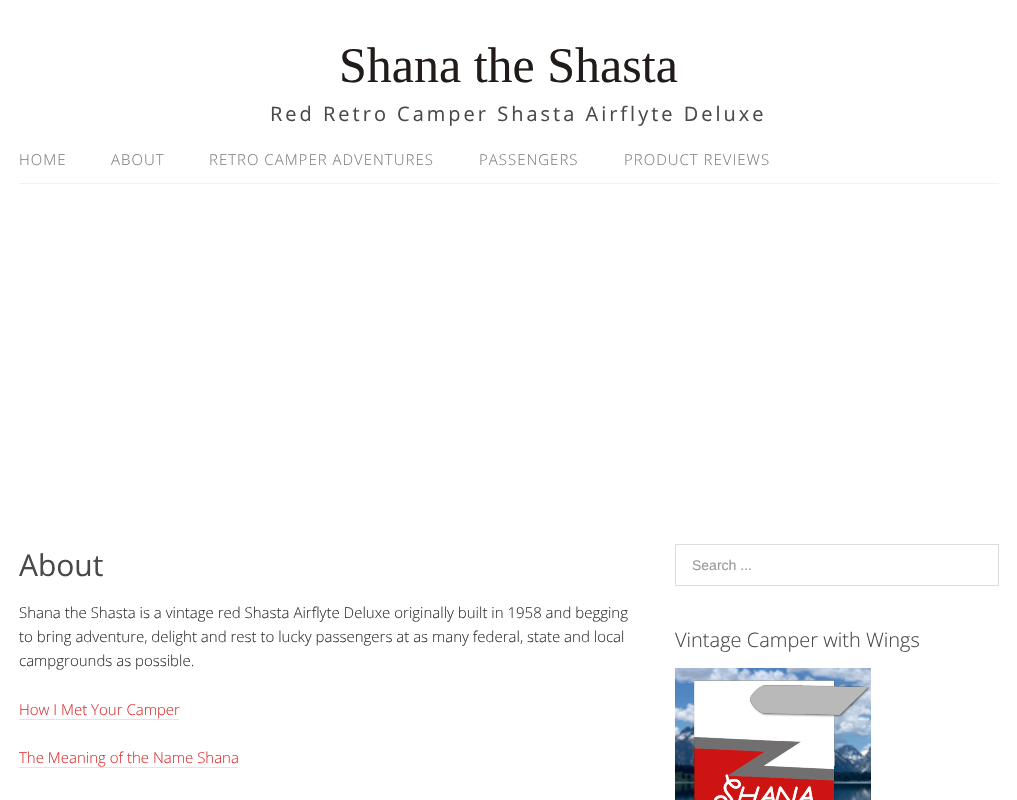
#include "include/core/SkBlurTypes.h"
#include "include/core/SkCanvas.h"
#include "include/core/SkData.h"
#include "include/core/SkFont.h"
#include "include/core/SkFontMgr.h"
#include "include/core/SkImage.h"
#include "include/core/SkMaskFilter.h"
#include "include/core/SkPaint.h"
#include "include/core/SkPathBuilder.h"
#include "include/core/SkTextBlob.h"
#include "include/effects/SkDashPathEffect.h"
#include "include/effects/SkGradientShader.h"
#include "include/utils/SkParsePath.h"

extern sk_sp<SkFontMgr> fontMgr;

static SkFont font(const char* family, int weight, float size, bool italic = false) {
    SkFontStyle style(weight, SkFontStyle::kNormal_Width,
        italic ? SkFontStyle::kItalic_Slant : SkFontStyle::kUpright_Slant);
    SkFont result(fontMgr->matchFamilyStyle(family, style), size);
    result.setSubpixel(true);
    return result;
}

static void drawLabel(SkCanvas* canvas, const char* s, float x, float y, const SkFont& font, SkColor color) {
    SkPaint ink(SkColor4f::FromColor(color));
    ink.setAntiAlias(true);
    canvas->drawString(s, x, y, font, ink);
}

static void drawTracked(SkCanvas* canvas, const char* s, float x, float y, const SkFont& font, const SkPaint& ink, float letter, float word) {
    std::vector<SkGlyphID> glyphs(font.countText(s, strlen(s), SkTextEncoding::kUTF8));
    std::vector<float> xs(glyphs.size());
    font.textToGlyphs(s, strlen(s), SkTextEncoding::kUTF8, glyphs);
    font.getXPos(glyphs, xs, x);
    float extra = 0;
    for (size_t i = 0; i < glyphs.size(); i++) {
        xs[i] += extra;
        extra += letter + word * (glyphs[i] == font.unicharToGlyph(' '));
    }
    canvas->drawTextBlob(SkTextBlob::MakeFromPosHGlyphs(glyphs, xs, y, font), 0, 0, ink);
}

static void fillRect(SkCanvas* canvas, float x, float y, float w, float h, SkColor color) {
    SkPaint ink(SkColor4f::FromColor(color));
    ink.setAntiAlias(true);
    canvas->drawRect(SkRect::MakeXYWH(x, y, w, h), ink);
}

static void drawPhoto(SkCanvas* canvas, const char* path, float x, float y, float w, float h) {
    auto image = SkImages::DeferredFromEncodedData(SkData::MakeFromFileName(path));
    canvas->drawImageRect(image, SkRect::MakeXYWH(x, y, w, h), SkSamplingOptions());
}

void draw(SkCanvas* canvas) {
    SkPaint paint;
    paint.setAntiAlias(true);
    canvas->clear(0xFFFFFFFF);
    SkFont font1 = font("Liberation Serif", 400, 50);
    drawLabel(canvas, "Shana the Shasta", 339, 82, font1, 0xFF211B1A);
    SkFont font2 = font("Open Sans", 400, 20);
    paint.setColor(0xFF494949);
    drawTracked(canvas, "Red Retro Camper Shasta Airflyte Deluxe", 270, 121, font2, paint, 3, 0);
    fillRect(canvas, 19, 183, 980, 1, 0xFFF2F2F2);
    SkFont font3 = font("Open Sans", 300, 15);
    paint.setColor(0xFF808080);
    drawTracked(canvas, "HOME", 19, 165, font3, paint, 1, 0);
    drawTracked(canvas, "ABOUT", 111, 165, font3, paint, 1, 0);
    drawTracked(canvas, "RETRO CAMPER ADVENTURES", 209, 165, font3, paint, 1, 0);
    drawTracked(canvas, "PASSENGERS", 479, 165, font3, paint, 1, 0);
    drawTracked(canvas, "PRODUCT REVIEWS", 624, 165, font3, paint, 1, 0);
    SkFont font4 = font("Open Sans", 400, 30);
    drawLabel(canvas, "About", 19, 576, font4, 0xFF494949);
    drawLabel(canvas, "Shana the Shasta is a vintage red Shasta Airflyte Deluxe originally built in 1958 and begging", 19, 618, font3, 0xFF333333);
    drawLabel(canvas, "to bring adventure, delight and rest to lucky passengers at as many federal, state and local", 19, 642, font3, 0xFF333333);
    drawLabel(canvas, "campgrounds as possible.", 19, 666, font3, 0xFF333333);
    drawLabel(canvas, "How I Met Your Camper", 19, 715, font3, 0xFFDD3333);
    fillRect(canvas, 19, 719, 160, 1, 0xFFE3E3E3);
    drawLabel(canvas, "The Meaning of the Name Shana", 19, 763, font3, 0xFFDD3333);
    fillRect(canvas, 19, 767, 219, 1, 0xFFE3E3E3);
    paint.setStroke(true);
    paint.setStrokeWidth(1);
    paint.setColor(0xFFDDDDDD);
    canvas->drawRect(SkRect::MakeXYWH(675.5f, 544.5f, 323, 41), paint);
    SkFont font5 = font("Liberation Sans", 400, 14);
    drawLabel(canvas, "Search ...", 692, 570, font5, 0xFF999999);
    SkFont font6 = font("Open Sans", 300, 20);
    drawLabel(canvas, "Vintage Camper with Wings", 675, 647, font6, 0xFF494949);
    drawPhoto(canvas, "assets/img1.png", 675, 668, 196, 132);
}
